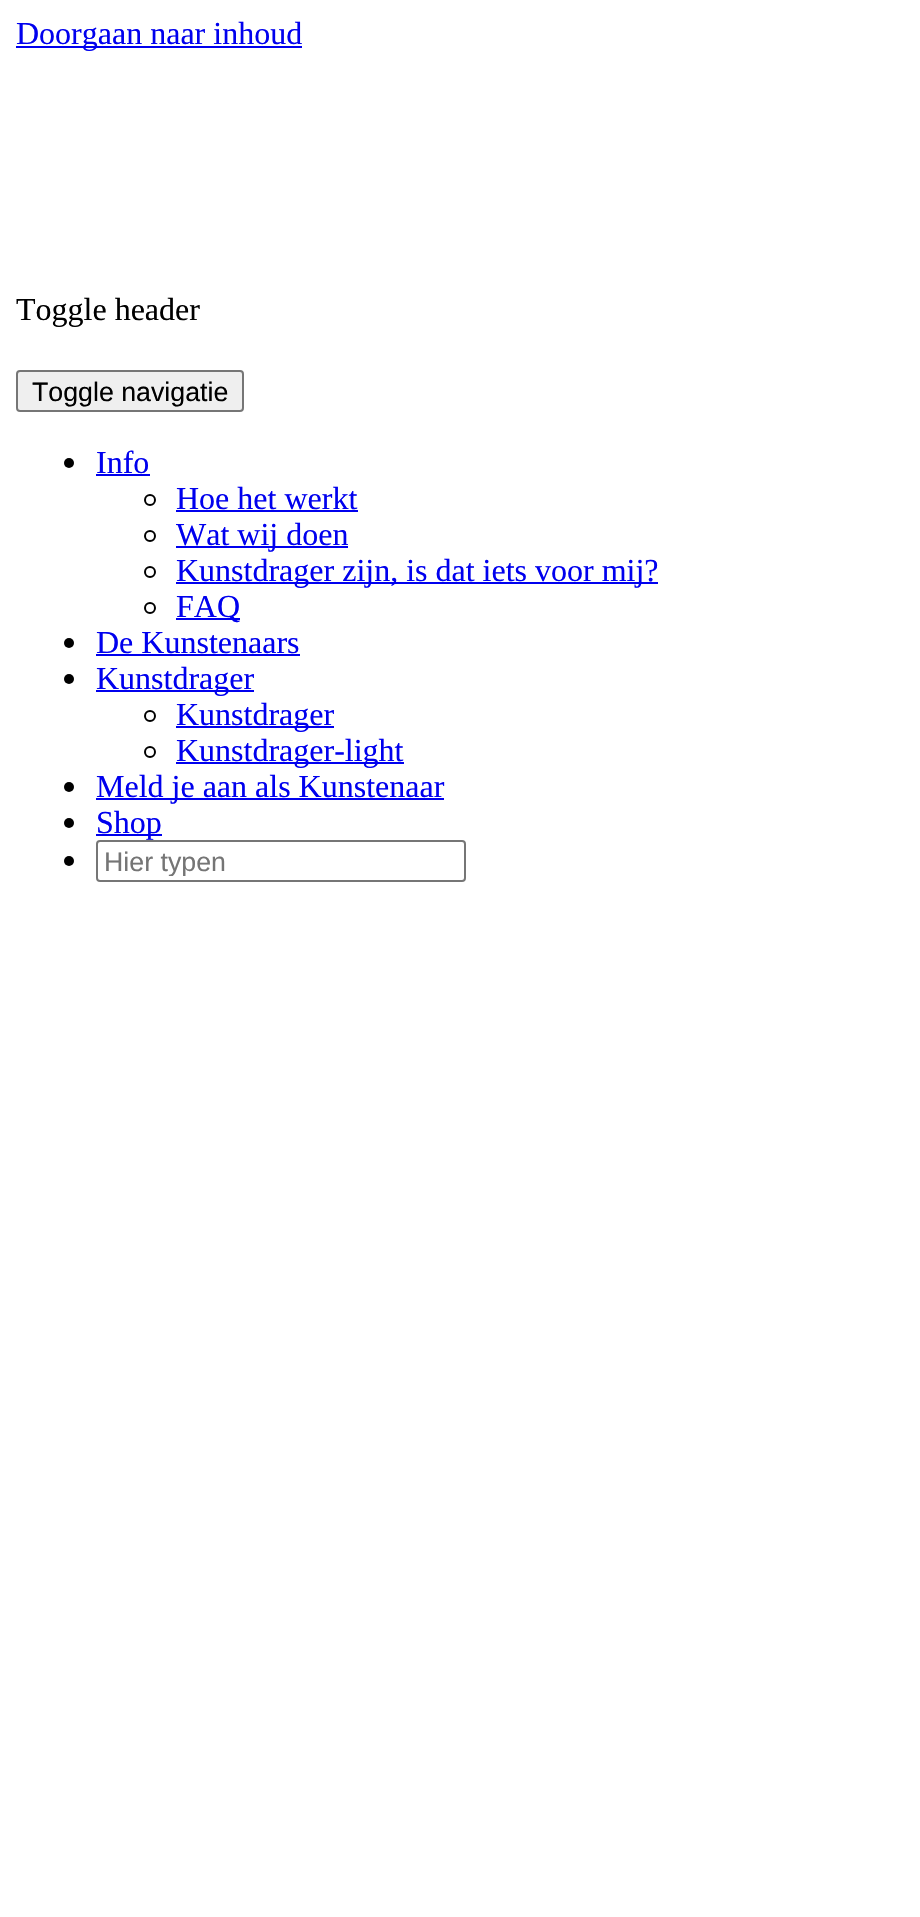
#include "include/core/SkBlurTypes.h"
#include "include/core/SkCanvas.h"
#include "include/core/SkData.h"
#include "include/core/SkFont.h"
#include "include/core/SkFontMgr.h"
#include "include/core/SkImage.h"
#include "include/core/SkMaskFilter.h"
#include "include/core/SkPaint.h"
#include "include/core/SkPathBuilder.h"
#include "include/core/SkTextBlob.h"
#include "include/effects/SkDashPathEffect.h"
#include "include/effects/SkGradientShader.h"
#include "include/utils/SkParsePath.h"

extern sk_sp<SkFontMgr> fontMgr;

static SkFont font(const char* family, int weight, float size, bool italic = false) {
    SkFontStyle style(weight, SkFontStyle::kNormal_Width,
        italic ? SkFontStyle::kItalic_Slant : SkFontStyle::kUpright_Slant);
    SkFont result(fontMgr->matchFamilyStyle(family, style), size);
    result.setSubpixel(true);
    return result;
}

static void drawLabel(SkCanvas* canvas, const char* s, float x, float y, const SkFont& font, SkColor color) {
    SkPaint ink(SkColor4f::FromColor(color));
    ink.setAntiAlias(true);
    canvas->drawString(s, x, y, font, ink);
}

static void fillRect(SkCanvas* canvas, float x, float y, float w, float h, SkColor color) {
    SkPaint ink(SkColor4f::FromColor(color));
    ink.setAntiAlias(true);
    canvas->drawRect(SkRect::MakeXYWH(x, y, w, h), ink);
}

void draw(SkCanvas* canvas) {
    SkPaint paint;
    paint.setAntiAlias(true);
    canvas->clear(0xFFFFFFFF);
    fillRect(canvas, 16, 46, 286, 2, 0xFF0000EE);
    SkFont font1 = font("Liberation Serif", 400, 32);
    drawLabel(canvas, "Doorgaan naar inhoud", 16, 44, font1, 0xFF0000EE);
    drawLabel(canvas, "Toggle header", 16, 320, font1, 0xFF000000);
    paint.setColor(0xFFEFEFEF);
    canvas->drawRoundRect(SkRect::MakeXYWH(17, 371, 226, 40), 3, 3, paint);
    paint.setStroke(true);
    paint.setStrokeWidth(2);
    paint.setColor(0xFF767676);
    canvas->drawRoundRect(SkRect::MakeXYWH(17, 371, 226, 40), 3, 3, paint);
    SkFont font2 = font("Liberation Sans", 400, 26.75f);
    drawLabel(canvas, "Toggle navigatie", 32, 401, font2, 0xFF000000);
    paint.setStroke(false);
    paint.setColor(0xFF000000);
    canvas->drawCircle(69, 463, 5, paint);
    drawLabel(canvas, "Info", 96, 473, font1, 0xFF0000EE);
    fillRect(canvas, 96, 474, 54, 2, 0xFF0000EE);
    paint.setStroke(true);
    canvas->drawCircle(150, 500, 5, paint);
    drawLabel(canvas, "Hoe het werkt", 176, 509, font1, 0xFF0000EE);
    fillRect(canvas, 176, 510, 182, 2, 0xFF0000EE);
    canvas->drawCircle(150, 536, 5, paint);
    fillRect(canvas, 176, 546, 172, 2, 0xFF0000EE);
    drawLabel(canvas, "Wat wij doen", 176, 545, font1, 0xFF0000EE);
    canvas->drawCircle(150, 572, 5, paint);
    fillRect(canvas, 176, 582, 482, 2, 0xFF0000EE);
    drawLabel(canvas, "Kunstdrager zijn, is dat iets voor mij?", 176, 581, font1, 0xFF0000EE);
    canvas->drawCircle(150, 608, 5, paint);
    fillRect(canvas, 176, 618, 64, 2, 0xFF0000EE);
    drawLabel(canvas, "FAQ", 176, 617, font1, 0xFF0000EE);
    paint.setStroke(false);
    canvas->drawCircle(69, 643, 5, paint);
    drawLabel(canvas, "De Kunstenaars", 96, 653, font1, 0xFF0000EE);
    fillRect(canvas, 96, 654, 204, 2, 0xFF0000EE);
    canvas->drawCircle(69, 679, 5, paint);
    fillRect(canvas, 96, 690, 158, 2, 0xFF0000EE);
    drawLabel(canvas, "Kunstdrager", 96, 689, font1, 0xFF0000EE);
    paint.setStroke(true);
    canvas->drawCircle(150, 716, 5, paint);
    fillRect(canvas, 176, 726, 158, 2, 0xFF0000EE);
    drawLabel(canvas, "Kunstdrager", 176, 725, font1, 0xFF0000EE);
    canvas->drawCircle(150, 752, 5, paint);
    fillRect(canvas, 176, 762, 228, 2, 0xFF0000EE);
    drawLabel(canvas, "Kunstdrager-light", 176, 761, font1, 0xFF0000EE);
    paint.setStroke(false);
    canvas->drawCircle(69, 787, 5, paint);
    fillRect(canvas, 96, 798, 348, 2, 0xFF0000EE);
    drawLabel(canvas, "Meld je aan als Kunstenaar", 96, 797, font1, 0xFF0000EE);
    canvas->drawCircle(69, 823, 5, paint);
    fillRect(canvas, 96, 834, 66, 2, 0xFF0000EE);
    drawLabel(canvas, "Shop", 96, 833, font1, 0xFF0000EE);
    canvas->drawCircle(69, 861, 5, paint);
    paint.setStroke(true);
    paint.setColor(0xFF767676);
    canvas->drawRoundRect(SkRect::MakeXYWH(97, 841, 368, 40), 3, 3, paint);
    canvas->save();
    canvas->clipRect(SkRect::MakeXYWH(104, 846, 354, 30));
    drawLabel(canvas, "Hier typen", 104, 871, font2, 0xFF757575);
    canvas->restore();
}
